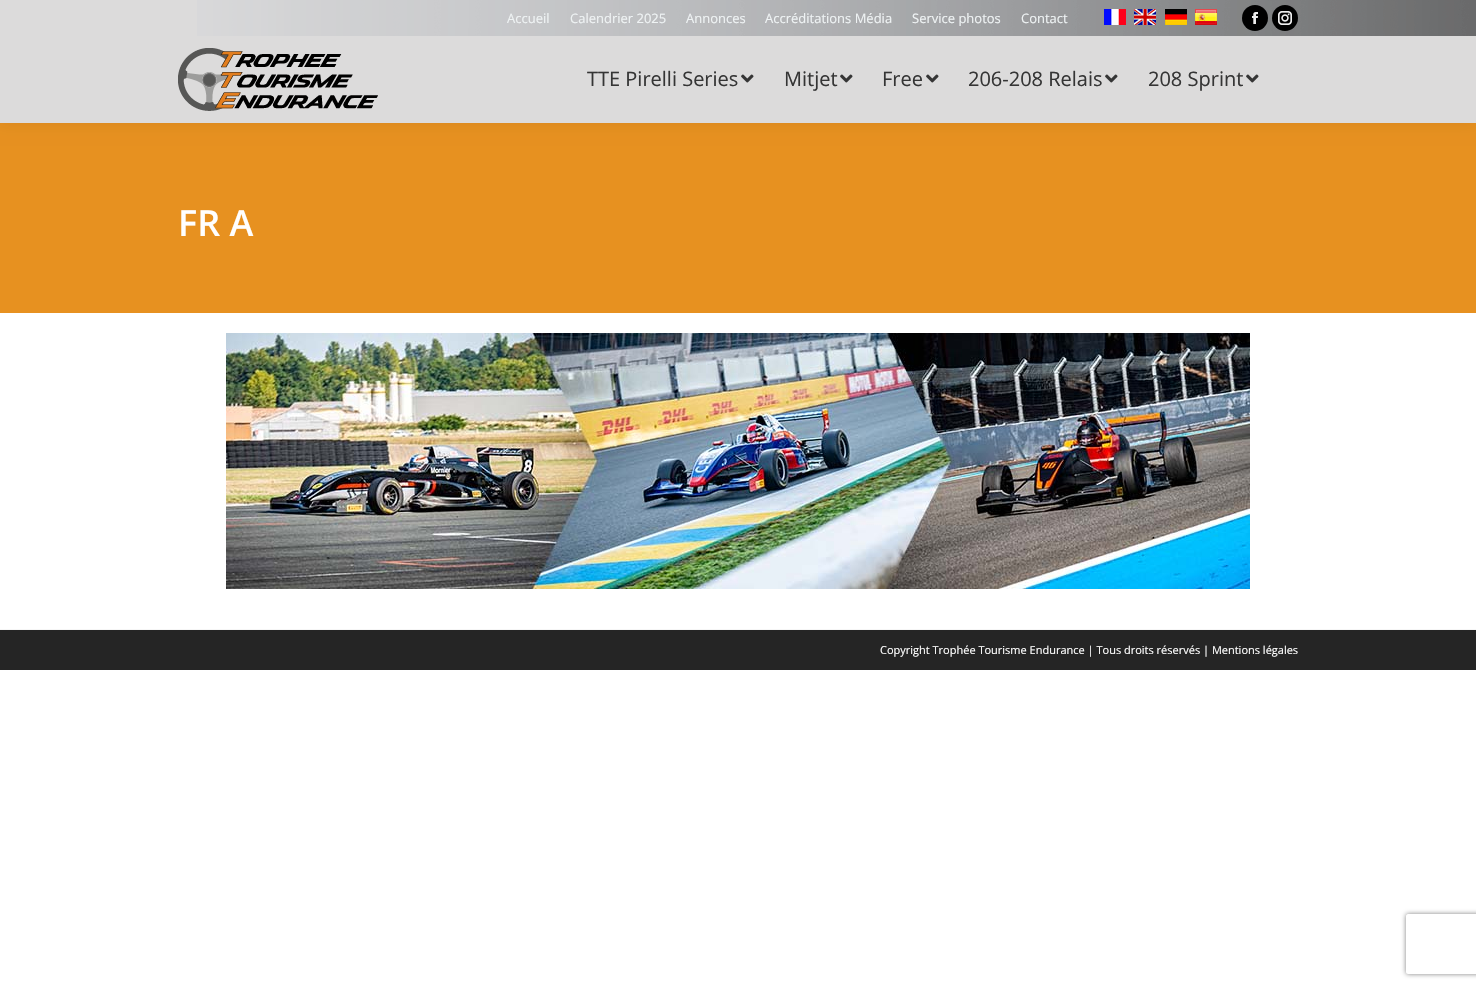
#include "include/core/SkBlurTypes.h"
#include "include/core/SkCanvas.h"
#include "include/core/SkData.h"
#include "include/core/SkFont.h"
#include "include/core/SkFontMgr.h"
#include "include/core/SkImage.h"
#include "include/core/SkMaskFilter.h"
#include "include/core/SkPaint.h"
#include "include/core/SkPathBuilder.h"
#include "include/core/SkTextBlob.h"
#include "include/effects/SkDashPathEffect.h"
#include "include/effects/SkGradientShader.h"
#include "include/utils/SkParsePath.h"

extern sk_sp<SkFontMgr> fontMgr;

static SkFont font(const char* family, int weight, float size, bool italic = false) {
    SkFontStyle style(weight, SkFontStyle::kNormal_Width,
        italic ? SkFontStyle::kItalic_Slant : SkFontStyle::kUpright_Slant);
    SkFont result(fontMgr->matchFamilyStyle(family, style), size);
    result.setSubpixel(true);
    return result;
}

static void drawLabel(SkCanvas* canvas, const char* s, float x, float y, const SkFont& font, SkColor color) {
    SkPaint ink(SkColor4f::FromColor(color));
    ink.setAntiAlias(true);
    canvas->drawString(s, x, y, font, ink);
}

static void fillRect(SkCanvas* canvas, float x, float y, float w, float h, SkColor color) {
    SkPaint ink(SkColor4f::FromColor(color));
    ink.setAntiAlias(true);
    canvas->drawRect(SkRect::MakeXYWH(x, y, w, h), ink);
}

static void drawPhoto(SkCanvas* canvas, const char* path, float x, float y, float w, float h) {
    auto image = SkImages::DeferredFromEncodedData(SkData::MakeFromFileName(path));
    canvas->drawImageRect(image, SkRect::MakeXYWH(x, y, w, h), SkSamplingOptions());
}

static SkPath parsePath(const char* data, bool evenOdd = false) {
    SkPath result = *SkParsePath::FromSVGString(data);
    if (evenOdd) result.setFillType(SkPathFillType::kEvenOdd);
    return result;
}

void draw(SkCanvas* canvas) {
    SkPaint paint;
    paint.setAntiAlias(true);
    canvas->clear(0xFFFFFFFF);
    fillRect(canvas, 0, 123, 1476, 190, 0xFFE79120);
    paint.setColor(0x12000000);
    paint.setMaskFilter(SkMaskFilter::MakeBlur(kNormal_SkBlurStyle, 7.5f));
    canvas->drawRect(SkRect::MakeXYWH(-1, -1, 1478, 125), paint);
    paint.setMaskFilter(nullptr);
    fillRect(canvas, 0, 0, 1476, 123, 0xFFDCDBDB);
    drawPhoto(canvas, "assets/img1.png", 197, 0, 1279, 36);
    SkFont font1 = font("Open Sans", 400, 13);
    drawLabel(canvas, "Accueil", 507, 23, font1, 0xFFEFF3F4);
    drawLabel(canvas, "Calendrier 2025", 570, 23, font1, 0xFFEFF3F4);
    drawLabel(canvas, "Annonces", 686, 23, font1, 0xFFEFF3F4);
    drawLabel(canvas, "Accréditations Média", 765, 23, font1, 0xFFEFF3F4);
    drawLabel(canvas, "Service photos", 912, 23, font1, 0xFFEFF3F4);
    drawLabel(canvas, "Contact", 1021, 23, font1, 0xFFEFF3F4);
    drawPhoto(canvas, "assets/img2.png", 1104, 9, 22, 16);
    drawPhoto(canvas, "assets/img3.png", 1134, 9, 22, 16);
    drawPhoto(canvas, "assets/img4.png", 1165, 9, 22, 16);
    drawPhoto(canvas, "assets/img5.png", 1195, 9, 22, 16);
    paint.setColor(0xFF000000);
    canvas->drawCircle(1255, 18, 13, paint);
    drawPhoto(canvas, "assets/img6.png", 1252, 12, 6, 12);
    canvas->drawCircle(1285, 18, 13, paint);
    drawPhoto(canvas, "assets/img7.png", 1278, 11, 14, 14);
    drawPhoto(canvas, "assets/img8.png", 178, 48, 200, 63);
    SkFont font2 = font("Open Sans", 400, 20);
    drawLabel(canvas, "TTE Pirelli Series", 587, 86, font2, 0xFF353535);
    drawPhoto(canvas, "assets/img9.png", 741, 74, 13, 9);
    drawLabel(canvas, "Mitjet", 784, 86, font2, 0xFF353535);
    drawPhoto(canvas, "assets/img9.png", 840, 74, 13, 9);
    drawLabel(canvas, "Free", 882, 86, font2, 0xFF353535);
    drawPhoto(canvas, "assets/img9.png", 926, 74, 13, 9);
    drawLabel(canvas, "206-208 Relais", 968, 86, font2, 0xFF353535);
    drawPhoto(canvas, "assets/img9.png", 1105, 74, 13, 9);
    drawLabel(canvas, "208 Sprint", 1148, 86, font2, 0xFF353535);
    drawPhoto(canvas, "assets/img9.png", 1246, 74, 13, 9);
    SkFont font3 = font("Open Sans", 600, 36);
    drawLabel(canvas, "FR A", 178, 236, font3, 0xFFFFFFFF);
    drawPhoto(canvas, "assets/img10.png", 226, 333, 1024, 256);
    fillRect(canvas, 0, 630, 1476, 40, 0xFF252525);
    fillRect(canvas, 0, 629, 1476, 1, 0xFFF6F6F6);
    SkFont font4 = font("Open Sans", 400, 11);
    drawLabel(canvas, "Copyright Trophée Tourisme Endurance | Tous droits réservés | Mentions légales", 880, 654, font4, 0xFFFFFFFF);
    canvas->save();
    canvas->clipPath(parsePath("M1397 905H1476V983H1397ZM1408 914H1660C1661 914 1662 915 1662 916V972C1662 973 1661 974 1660 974H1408C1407 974 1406 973 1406 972V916C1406 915 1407 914 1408 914Z", true), true);
    paint.setColor(0xFF808080);
    paint.setMaskFilter(SkMaskFilter::MakeBlur(kNormal_SkBlurStyle, 2.5f));
    canvas->drawRoundRect(SkRect::MakeXYWH(1406, 914, 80, 60), 2, 2, paint);
    paint.setMaskFilter(nullptr);
    canvas->restore();
}
